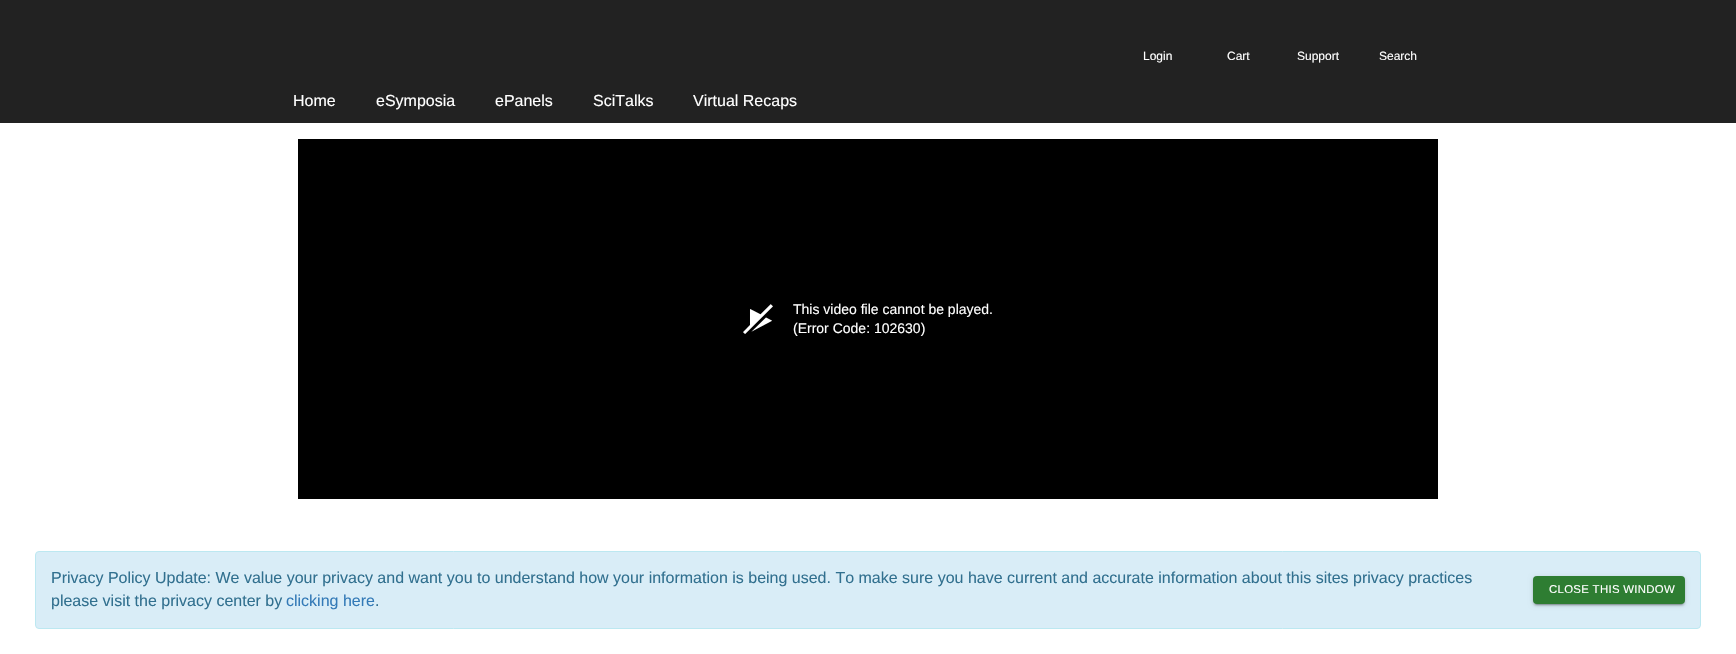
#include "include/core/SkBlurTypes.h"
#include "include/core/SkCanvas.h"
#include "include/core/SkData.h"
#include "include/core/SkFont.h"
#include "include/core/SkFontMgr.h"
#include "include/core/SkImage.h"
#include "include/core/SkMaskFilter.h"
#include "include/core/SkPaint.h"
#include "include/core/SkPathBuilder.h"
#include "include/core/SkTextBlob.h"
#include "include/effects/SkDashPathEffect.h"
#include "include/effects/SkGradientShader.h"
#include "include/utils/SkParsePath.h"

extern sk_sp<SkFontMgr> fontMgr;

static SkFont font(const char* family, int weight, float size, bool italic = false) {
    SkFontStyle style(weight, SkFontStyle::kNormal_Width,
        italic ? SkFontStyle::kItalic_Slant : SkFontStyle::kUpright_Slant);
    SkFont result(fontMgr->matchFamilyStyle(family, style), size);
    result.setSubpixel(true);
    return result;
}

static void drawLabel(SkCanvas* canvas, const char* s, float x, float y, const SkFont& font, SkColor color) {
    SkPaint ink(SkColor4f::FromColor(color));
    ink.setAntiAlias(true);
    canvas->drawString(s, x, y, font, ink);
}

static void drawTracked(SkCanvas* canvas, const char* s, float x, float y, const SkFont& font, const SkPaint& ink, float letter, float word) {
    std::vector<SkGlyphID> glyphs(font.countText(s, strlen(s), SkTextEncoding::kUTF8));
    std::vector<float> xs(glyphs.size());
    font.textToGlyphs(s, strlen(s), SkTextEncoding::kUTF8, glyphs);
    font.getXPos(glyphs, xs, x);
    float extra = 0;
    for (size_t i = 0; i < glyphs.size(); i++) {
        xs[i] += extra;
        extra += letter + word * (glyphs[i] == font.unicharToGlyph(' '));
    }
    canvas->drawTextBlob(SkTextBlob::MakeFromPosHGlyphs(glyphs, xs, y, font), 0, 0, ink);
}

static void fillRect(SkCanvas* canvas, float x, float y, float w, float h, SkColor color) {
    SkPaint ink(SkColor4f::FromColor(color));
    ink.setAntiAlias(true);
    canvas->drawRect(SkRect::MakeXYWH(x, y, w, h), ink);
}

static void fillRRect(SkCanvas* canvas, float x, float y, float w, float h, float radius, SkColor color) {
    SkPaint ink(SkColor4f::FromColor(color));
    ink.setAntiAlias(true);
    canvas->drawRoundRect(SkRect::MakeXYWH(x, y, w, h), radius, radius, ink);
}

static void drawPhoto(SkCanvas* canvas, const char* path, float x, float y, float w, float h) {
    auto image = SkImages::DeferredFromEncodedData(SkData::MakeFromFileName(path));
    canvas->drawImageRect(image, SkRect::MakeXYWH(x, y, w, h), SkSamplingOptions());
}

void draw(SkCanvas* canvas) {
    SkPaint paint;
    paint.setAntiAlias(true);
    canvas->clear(0xFFFFFFFF);
    fillRect(canvas, 0, 0, 1736, 123, 0xFF222222);
    SkFont font1 = font("Liberation Sans", 400, 12);
    drawLabel(canvas, "Login", 1143, 60, font1, 0xFFFFFFFF);
    drawLabel(canvas, "Cart", 1227, 60, font1, 0xFFFFFFFF);
    drawLabel(canvas, "Support", 1297, 60, font1, 0xFFFFFFFF);
    drawLabel(canvas, "Search", 1379, 60, font1, 0xFFFFFFFF);
    SkFont font2 = font("Liberation Sans", 400, 16);
    drawLabel(canvas, "Home", 293, 106, font2, 0xFFFFFFFF);
    drawLabel(canvas, "eSymposia", 376, 106, font2, 0xFFFFFFFF);
    drawLabel(canvas, "ePanels", 495, 106, font2, 0xFFFFFFFF);
    drawLabel(canvas, "SciTalks", 593, 106, font2, 0xFFFFFFFF);
    drawLabel(canvas, "Virtual Recaps", 693, 106, font2, 0xFFFFFFFF);
    fillRect(canvas, 298, 139, 1140, 360, 0xFF000000);
    drawPhoto(canvas, "assets/img1.png", 743, 304, 30, 30);
    SkFont font3 = font("Liberation Sans", 400, 14);
    drawLabel(canvas, "This video file cannot be played.", 793, 314, font3, 0xFFFFFFFF);
    drawLabel(canvas, "(Error Code: 102630)", 793, 333, font3, 0xFFFFFFFF);
    paint.setColor(0xFFD9EDF7);
    canvas->drawRoundRect(SkRect::MakeXYWH(35.5f, 551.5f, 1665, 77), 3.5f, 3.5f, paint);
    paint.setStroke(true);
    paint.setStrokeWidth(1);
    paint.setColor(0xFFBCE8F1);
    canvas->drawRoundRect(SkRect::MakeXYWH(35.5f, 551.5f, 1665, 77), 3.5f, 3.5f, paint);
    drawLabel(canvas, "Privacy Policy Update: We value your privacy and want you to understand how your information is being used. To make sure you have current and accurate information about this sites privacy practices", 51, 583, font2, 0xFF31708F);
    drawLabel(canvas, "please visit the privacy center by", 51, 606, font2, 0xFF31708F);
    drawLabel(canvas, "clicking here", 286, 606, font2, 0xFF337AB7);
    drawLabel(canvas, ".", 375, 606, font2, 0xFF31708F);
    paint.setStroke(false);
    paint.setColor(0x1F000000);
    paint.setMaskFilter(SkMaskFilter::MakeBlur(kNormal_SkBlurStyle, 2.5f));
    canvas->drawRoundRect(SkRect::MakeXYWH(1533, 577, 152, 28), 4, 4, paint);
    paint.setMaskFilter(nullptr);
    paint.setColor(0x24000000);
    paint.setMaskFilter(SkMaskFilter::MakeBlur(kNormal_SkBlurStyle, 1));
    canvas->drawRoundRect(SkRect::MakeXYWH(1533, 578, 152, 28), 4, 4, paint);
    paint.setMaskFilter(nullptr);
    paint.setColor(0x33000000);
    paint.setMaskFilter(SkMaskFilter::MakeBlur(kNormal_SkBlurStyle, 0.5f));
    canvas->drawRoundRect(SkRect::MakeXYWH(1535, 581, 148, 24), 2, 2, paint);
    paint.setMaskFilter(nullptr);
    fillRRect(canvas, 1533, 576, 152, 28, 4, 0xFF2E7D32);
    SkFont font4 = font("Liberation Sans", 400, 11.4f);
    paint.setColor(0xFFFFFFFF);
    drawTracked(canvas, "CLOSE THIS WINDOW", 1549, 593, font4, paint, 0.3f, 0);
}
